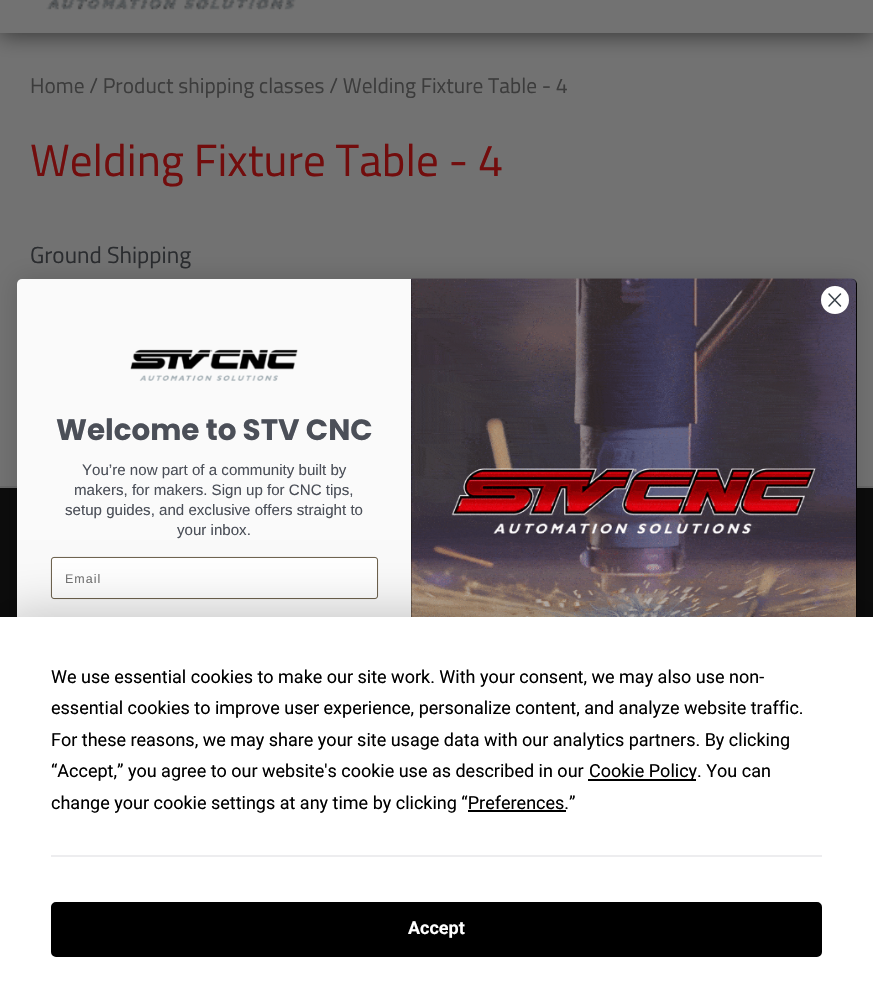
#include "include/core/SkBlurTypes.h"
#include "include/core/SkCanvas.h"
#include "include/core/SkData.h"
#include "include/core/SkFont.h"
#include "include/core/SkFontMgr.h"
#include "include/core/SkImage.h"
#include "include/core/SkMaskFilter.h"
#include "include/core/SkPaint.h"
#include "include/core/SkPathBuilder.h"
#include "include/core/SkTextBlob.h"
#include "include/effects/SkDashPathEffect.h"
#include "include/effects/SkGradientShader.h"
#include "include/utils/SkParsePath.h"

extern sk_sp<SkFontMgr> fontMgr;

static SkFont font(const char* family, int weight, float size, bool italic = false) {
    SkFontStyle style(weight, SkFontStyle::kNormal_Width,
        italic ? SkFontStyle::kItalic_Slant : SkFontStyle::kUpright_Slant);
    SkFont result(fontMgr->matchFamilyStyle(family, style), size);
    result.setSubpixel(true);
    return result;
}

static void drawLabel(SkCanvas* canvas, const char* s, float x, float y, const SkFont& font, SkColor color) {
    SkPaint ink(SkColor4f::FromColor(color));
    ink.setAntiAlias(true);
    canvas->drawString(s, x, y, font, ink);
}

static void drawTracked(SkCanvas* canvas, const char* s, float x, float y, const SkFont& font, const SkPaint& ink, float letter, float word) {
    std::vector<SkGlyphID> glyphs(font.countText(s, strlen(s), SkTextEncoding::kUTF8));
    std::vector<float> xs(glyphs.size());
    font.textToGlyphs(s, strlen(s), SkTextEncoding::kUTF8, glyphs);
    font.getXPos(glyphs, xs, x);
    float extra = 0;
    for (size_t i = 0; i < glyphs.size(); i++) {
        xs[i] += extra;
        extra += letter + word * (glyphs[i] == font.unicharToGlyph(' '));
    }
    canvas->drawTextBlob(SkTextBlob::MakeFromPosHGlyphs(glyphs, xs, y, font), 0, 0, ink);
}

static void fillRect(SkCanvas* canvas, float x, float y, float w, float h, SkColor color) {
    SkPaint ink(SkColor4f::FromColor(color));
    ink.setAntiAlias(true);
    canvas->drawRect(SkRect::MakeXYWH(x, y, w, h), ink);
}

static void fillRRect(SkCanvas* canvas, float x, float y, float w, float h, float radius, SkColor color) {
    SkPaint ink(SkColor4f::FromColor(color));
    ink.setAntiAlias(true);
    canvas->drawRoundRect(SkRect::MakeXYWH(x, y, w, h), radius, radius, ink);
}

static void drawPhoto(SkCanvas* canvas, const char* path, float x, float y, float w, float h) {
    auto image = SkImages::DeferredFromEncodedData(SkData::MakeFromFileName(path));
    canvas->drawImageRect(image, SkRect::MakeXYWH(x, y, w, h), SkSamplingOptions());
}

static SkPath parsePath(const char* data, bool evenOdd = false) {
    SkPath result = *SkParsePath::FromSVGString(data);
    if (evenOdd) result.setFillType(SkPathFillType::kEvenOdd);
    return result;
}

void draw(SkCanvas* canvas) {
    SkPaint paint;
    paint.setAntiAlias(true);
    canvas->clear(0xFF727272);
    canvas->save();
    canvas->clipRect(SkRect::MakeXYWH(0, 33, 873, 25));
    paint.setColor(0xFF343434);
    paint.setMaskFilter(SkMaskFilter::MakeBlur(kNormal_SkBlurStyle, 11));
    canvas->drawRect(SkRect::MakeXYWH(0, -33, 873, 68), paint);
    paint.setMaskFilter(nullptr);
    canvas->restore();
    drawPhoto(canvas, "assets/img1.png", 46, 0, 250, 10);
    SkFont font1 = font("Titillium Web", 400, 21.4f);
    drawLabel(canvas, "Home / Product shipping classes / Welding Fixture Table - 4", 30, 93, font1, 0xFF3C3C3C);
    SkFont font2 = font("Titillium Web", 400, 45);
    drawLabel(canvas, "Welding Fixture Table - 4", 30, 176, font2, 0xFF720D0D);
    SkFont font3 = font("Titillium Web", 400, 23.25f);
    drawLabel(canvas, "Ground Shipping", 30, 263, font3, 0xFF2A2C2F);
    fillRect(canvas, 0, 488, 873, 129, 0xFF0C0C0C);
    fillRect(canvas, 0, 486, 873, 2, 0xFF686868);
    paint.setColor(0x26000000);
    paint.setMaskFilter(SkMaskFilter::MakeBlur(kNormal_SkBlurStyle, 12.5f));
    canvas->drawRoundRect(SkRect::MakeXYWH(17, 279, 840, 444), 5, 5, paint);
    paint.setMaskFilter(nullptr);
    fillRRect(canvas, 17, 279, 840, 444, 5, 0xFFFAFAFA);
    paint.setColor(0xFF000000);
    canvas->drawPath(parsePath("M411 279H852C855 279 857 281 857 284V718C857 721 855 723 852 723H411Z"), paint);
    drawPhoto(canvas, "assets/img3.png", 411, 278, 446, 339);
    paint.setColor(0xFFFFFFFF);
    canvas->drawCircle(835, 300, 14, paint);
    paint.setStroke(true);
    paint.setStrokeWidth(1.5f);
    paint.setStrokeCap(SkPaint::kRound_Cap);
    paint.setStrokeJoin(SkPaint::kRound_Join);
    paint.setColor(0xFF373F47);
    canvas->drawPath(parsePath("M829 294L840.5 306M829 306L840.5 294Z"), paint);
    drawPhoto(canvas, "assets/img2.png", 130, 349, 168, 32);
    SkFont font4 = font("Poppins", 700, 29.4f);
    drawLabel(canvas, "Welcome to STV CNC", 56, 440, font4, 0xFF4B4F58);
    SkFont font5 = font("Liberation Sans", 400, 15.1f);
    drawLabel(canvas, "You’re now part of a community built by", 82, 475, font5, 0xFF4B4F58);
    drawLabel(canvas, "makers, for makers. Sign up for CNC tips,", 74, 495, font5, 0xFF4B4F58);
    drawLabel(canvas, "setup guides, and exclusive offers straight to", 65, 515, font5, 0xFF4B4F58);
    drawLabel(canvas, "your inbox.", 177, 535, font5, 0xFF4B4F58);
    paint.setStroke(false);
    paint.setColor(0xFFFFFFFF);
    canvas->drawRoundRect(SkRect::MakeXYWH(51.45f, 557.45f, 326.1f, 41.1f), 2.55f, 2.55f, paint);
    paint.setStroke(true);
    paint.setStrokeWidth(0.9f);
    paint.setStrokeCap(SkPaint::kButt_Cap);
    paint.setStrokeJoin(SkPaint::kMiter_Join);
    paint.setColor(0xFF54462F);
    canvas->drawRoundRect(SkRect::MakeXYWH(51.45f, 557.45f, 326.1f, 41.1f), 2.55f, 2.55f, paint);
    SkFont font6 = font("Liberation Sans", 400, 12.5f);
    paint.setStroke(false);
    paint.setColor(0xFF767676);
    drawTracked(canvas, "Email", 65, 583, font6, paint, 1, 0);
    paint.setColor(0x40000000);
    paint.setMaskFilter(SkMaskFilter::MakeBlur(kNormal_SkBlurStyle, 26));
    canvas->drawRect(SkRect::MakeXYWH(0, 617, 873, 385), paint);
    paint.setMaskFilter(nullptr);
    fillRect(canvas, 0, 617, 873, 385, 0xFFFFFFFF);
    SkFont font7 = font("Roboto", 400, 18);
    drawLabel(canvas, "We use essential cookies to make our site work. With your consent, we may also use non-", 51, 683, font7, 0xFF000000);
    drawLabel(canvas, "essential cookies to improve user experience, personalize content, and analyze website traffic.", 51, 714, font7, 0xFF000000);
    drawLabel(canvas, "For these reasons, we may share your site usage data with our analytics partners. By clicking", 51, 746, font7, 0xFF000000);
    drawLabel(canvas, "“Accept,” you agree to our website's cookie use as described in our", 51, 777, font7, 0xFF000000);
    fillRect(canvas, 588, 779, 108, 2, 0xFF000000);
    drawLabel(canvas, "Cookie Policy. You can", 589, 777, font7, 0xFF000000);
    drawLabel(canvas, "change your cookie settings at any time by clicking “Preferences.”", 51, 809, font7, 0xFF000000);
    fillRect(canvas, 468, 810, 98, 2, 0xFF000000);
    fillRect(canvas, 51, 855, 771, 2, 0xFFEDEDEF);
    paint.setColor(0xFF000000);
    canvas->drawRoundRect(SkRect::MakeXYWH(52, 903, 769, 53), 4, 4, paint);
    paint.setStroke(true);
    paint.setStrokeWidth(2);
    canvas->drawRoundRect(SkRect::MakeXYWH(52, 903, 769, 53), 4, 4, paint);
    SkFont font8 = font("Roboto", 700, 18);
    drawLabel(canvas, "Accept", 408, 934, font8, 0xFFFFFFFF);
}
